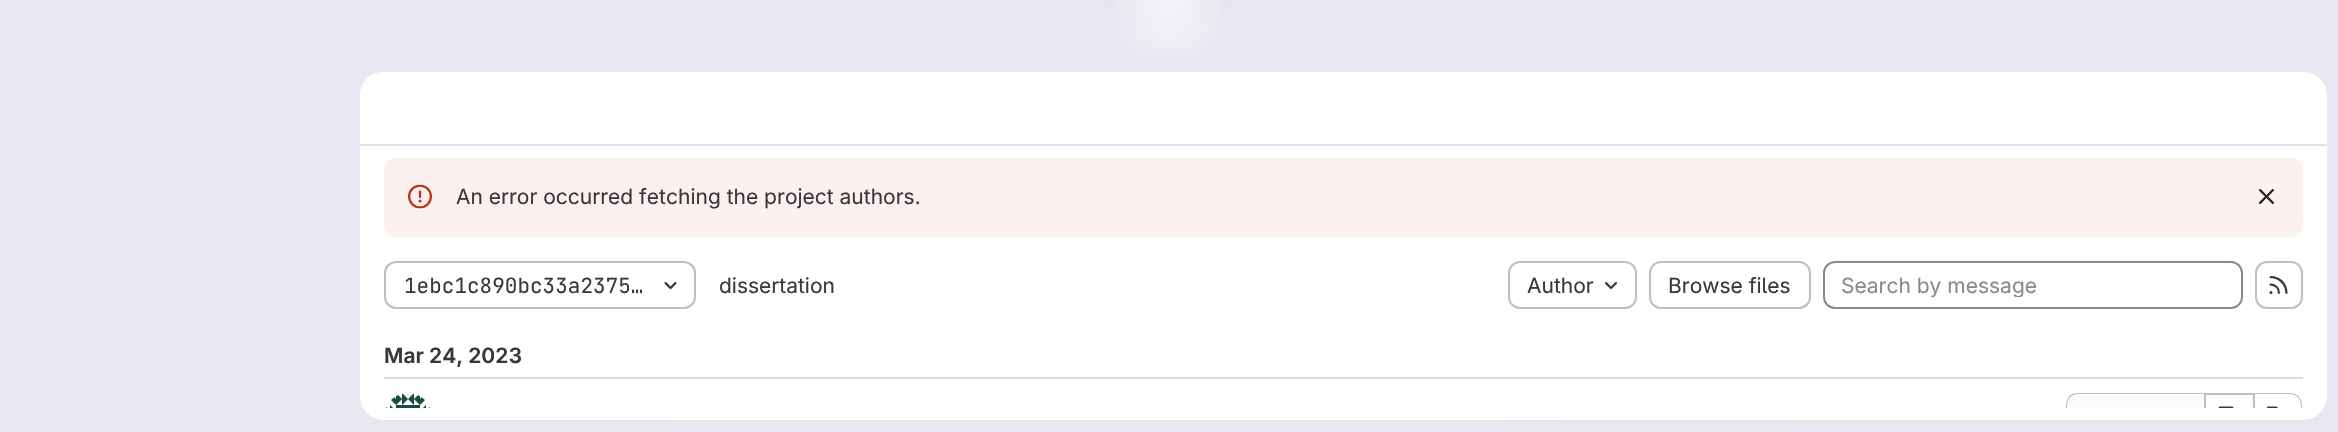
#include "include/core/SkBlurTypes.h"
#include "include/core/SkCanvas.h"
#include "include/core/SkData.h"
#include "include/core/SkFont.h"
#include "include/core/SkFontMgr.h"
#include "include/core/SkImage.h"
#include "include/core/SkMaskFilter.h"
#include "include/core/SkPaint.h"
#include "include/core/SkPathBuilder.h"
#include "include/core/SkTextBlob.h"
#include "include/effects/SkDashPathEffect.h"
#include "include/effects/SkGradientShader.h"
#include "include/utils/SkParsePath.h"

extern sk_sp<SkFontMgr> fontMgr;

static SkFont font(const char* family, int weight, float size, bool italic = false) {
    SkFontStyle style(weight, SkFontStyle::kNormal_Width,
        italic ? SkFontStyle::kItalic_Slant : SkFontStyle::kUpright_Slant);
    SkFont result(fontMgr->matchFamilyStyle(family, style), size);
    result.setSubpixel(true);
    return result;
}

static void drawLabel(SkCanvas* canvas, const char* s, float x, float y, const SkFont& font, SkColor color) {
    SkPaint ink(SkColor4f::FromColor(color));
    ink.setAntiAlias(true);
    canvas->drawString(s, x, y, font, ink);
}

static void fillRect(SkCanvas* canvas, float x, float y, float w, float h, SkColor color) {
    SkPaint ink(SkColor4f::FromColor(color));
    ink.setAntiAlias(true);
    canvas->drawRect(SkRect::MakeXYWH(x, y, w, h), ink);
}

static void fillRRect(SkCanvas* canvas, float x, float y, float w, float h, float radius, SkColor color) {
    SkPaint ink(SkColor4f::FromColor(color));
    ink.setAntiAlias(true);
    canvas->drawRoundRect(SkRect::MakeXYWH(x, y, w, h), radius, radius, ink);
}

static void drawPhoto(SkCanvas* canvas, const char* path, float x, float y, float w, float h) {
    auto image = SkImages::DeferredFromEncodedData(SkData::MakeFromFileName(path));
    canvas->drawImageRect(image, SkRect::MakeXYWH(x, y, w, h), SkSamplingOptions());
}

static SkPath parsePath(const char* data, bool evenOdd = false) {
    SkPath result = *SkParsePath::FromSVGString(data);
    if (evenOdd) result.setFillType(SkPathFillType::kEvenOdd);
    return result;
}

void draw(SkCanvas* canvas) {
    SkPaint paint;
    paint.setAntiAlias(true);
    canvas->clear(0xFFFFFFFF);
    {
        const SkColor colors[] = {0xFFE8E6F0, 0xFFEAE9F2};
        const float stops[] = {0, 0.7f};
        const SkPoint ends[] = {{1241, 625}, {1097, -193}};
        paint.setShader(SkGradientShader::MakeLinear(ends, colors, stops, 2, SkTileMode::kClamp));
        paint.setAlpha(255);
    }
    canvas->drawRect(SkRect::MakeXYWH(0, 0, 2338, 432), paint);
    {
        const SkColor colors[] = {0xFFE4E2ED, 0x00E4E2ED};
        const float stops[] = {0, 0.09f};
        SkMatrix m = SkMatrix::Translate(1169, 0).preScale(1169, 432);
        paint.setShader(SkGradientShader::MakeRadial({0, 0}, 1, colors, stops, 2, SkTileMode::kClamp, 0, &m));
        paint.setAlpha(255);
    }
    canvas->drawRect(SkRect::MakeXYWH(1093, 0, 152, 28), paint);
    {
        const SkColor colors[] = {0x99FFFFFF, 0x00FFFFFF};
        const float stops[] = {0, 0.05f};
        paint.setShader(SkGradientShader::MakeRadial({1169, 0}, 1247, colors, stops, 2, SkTileMode::kClamp));
        paint.setAlpha(255);
    }
    canvas->drawRect(SkRect::MakeXYWH(1117, 0, 104, 50), paint);
    fillRRect(canvas, 360, 72, 1967, 348, 24, 0xFFFFFFFF);
    paint.setShader(nullptr);
    paint.setColor(0xFFFFFFFF);
    canvas->drawPath(parsePath("M384 72H2303C2316.5 72 2327 82.5 2327 96V146H360V96C360 82.5 370.5 72 384 72Z"), paint);
    fillRect(canvas, 360, 144, 1967, 2, 0xFFE1DFEC);
    fillRRect(canvas, 384, 158, 1919, 79, 12, 0xFFFCF1EF);
    drawPhoto(canvas, "assets/img1.png", 408, 184, 24, 25);
    SkFont font1 = font("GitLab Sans", 400, 21);
    drawLabel(canvas, "An error occurred fetching the project authors.", 456, 204, font1, 0xFF3A383F);
    drawPhoto(canvas, "assets/img2.png", 2259, 189, 15, 15);
    paint.setStroke(true);
    paint.setStrokeWidth(2);
    paint.setColor(0xFFBFBFC3);
    canvas->drawRoundRect(SkRect::MakeXYWH(385, 262, 310, 46), 11, 11, paint);
    SkFont font2 = font("JetBrains Mono", 400, 21);
    drawLabel(canvas, "1ebc1c890bc33a2375…", 404, 293, font2, 0xFF3A383F);
    drawPhoto(canvas, "assets/img3.png", 664, 282, 13, 8);
    drawLabel(canvas, "dissertation", 719, 293, font1, 0xFF3A383F);
    canvas->drawRoundRect(SkRect::MakeXYWH(1509, 262, 127, 46), 11, 11, paint);
    drawLabel(canvas, "Author", 1527, 293, font1, 0xFF3A383F);
    drawPhoto(canvas, "assets/img4.png", 1605, 282, 12, 8);
    canvas->drawRoundRect(SkRect::MakeXYWH(1650, 262, 160, 46), 11, 11, paint);
    drawLabel(canvas, "Browse files", 1668, 293, font1, 0xFF3A383F);
    paint.setColor(0xFF89888D);
    canvas->drawRoundRect(SkRect::MakeXYWH(1824, 262, 418, 46), 11, 11, paint);
    canvas->save();
    canvas->clipRect(SkRect::MakeXYWH(1841, 272, 384, 25));
    drawLabel(canvas, "Search by message", 1841, 293, font1, 0xFF89888D);
    canvas->restore();
    paint.setColor(0xFFBFBFC3);
    canvas->drawRoundRect(SkRect::MakeXYWH(2256, 262, 46, 46), 11, 11, paint);
    drawPhoto(canvas, "assets/img5.png", 2269, 276, 19, 18);
    SkFont font3 = font("GitLab Sans", 600, 21);
    drawLabel(canvas, "Mar 24, 2023", 384, 363, font3, 0xFF3A383F);
    fillRect(canvas, 384, 377, 1919, 2, 0xFFDCDCDE);
    paint.setStroke(false);
    paint.setColor(0xFFFBFAFD);
    canvas->drawPath(parsePath("M408 393C421.5 393 432 403.5 432 417V408H384V417C384 403.5 394.5 393 408 393Z"), paint);
    drawPhoto(canvas, "assets/img6.png", 385, 393, 46, 15);
    canvas->drawPath(parsePath("M2078 395H2204V408H2067V406C2067 400 2072 395 2078 395Z"), paint);
    canvas->save();
    canvas->clipRect(SkRect::MakeXYWH(360, 146, 1967, 262));
    paint.setColor(0xFFBFBFC3);
    canvas->drawPath(parsePath("M2078 393H2204V394H2078C2072 394 2067 399 2067 405V420H2066C2066 410 2063 393 2078 393Z"), paint);
    canvas->restore();
    fillRect(canvas, 2205, 393, 48, 2, 0xFFBFBFC3);
    fillRect(canvas, 2204, 393, 2, 15, 0xFFBFBFC3);
    drawPhoto(canvas, "assets/img7.png", 2218, 406, 16, 2);
    canvas->save();
    canvas->clipRect(SkRect::MakeXYWH(360, 146, 1967, 262));
    canvas->drawPath(parsePath("M2254 393H2290C2297 393 2302 398 2302 405V420H2301V405C2301 399 2296 394 2290 394H2254Z"), paint);
    canvas->restore();
    fillRect(canvas, 2253, 393, 2, 15, 0xFFBFBFC3);
    drawPhoto(canvas, "assets/img8.png", 2266, 406, 12, 2);
}
